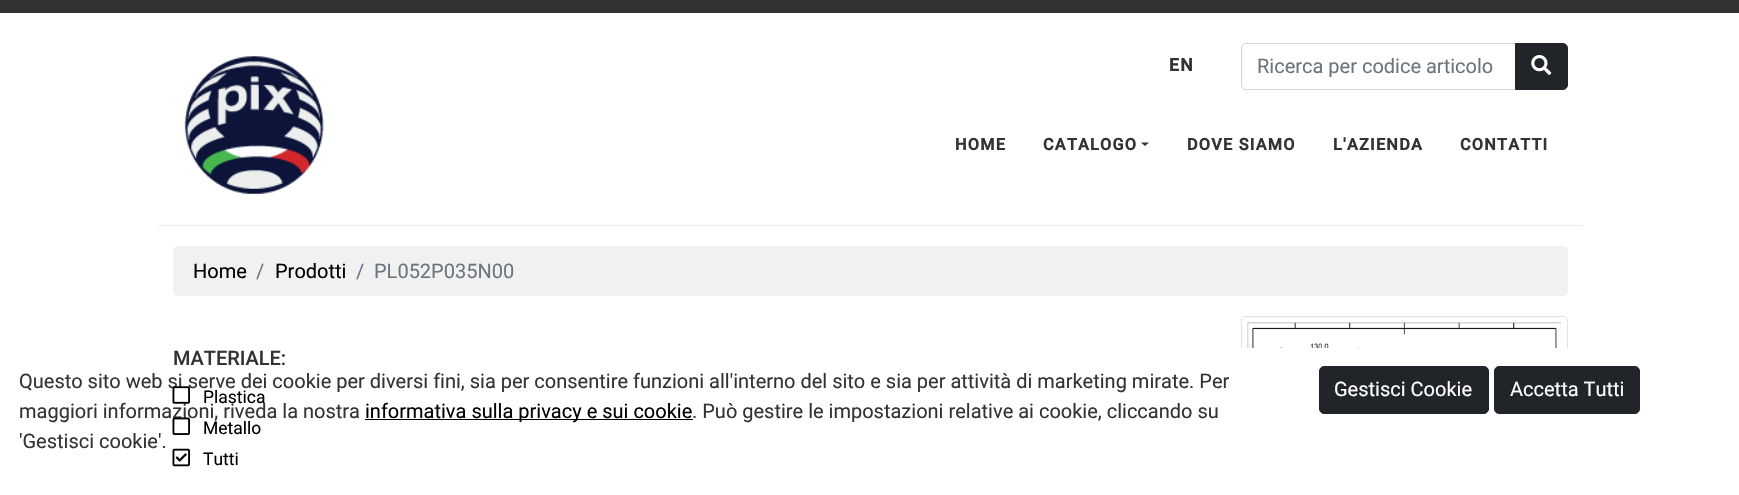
#include "include/core/SkBlurTypes.h"
#include "include/core/SkCanvas.h"
#include "include/core/SkData.h"
#include "include/core/SkFont.h"
#include "include/core/SkFontMgr.h"
#include "include/core/SkImage.h"
#include "include/core/SkMaskFilter.h"
#include "include/core/SkPaint.h"
#include "include/core/SkPathBuilder.h"
#include "include/core/SkTextBlob.h"
#include "include/effects/SkDashPathEffect.h"
#include "include/effects/SkGradientShader.h"
#include "include/utils/SkParsePath.h"

extern sk_sp<SkFontMgr> fontMgr;

static SkFont font(const char* family, int weight, float size, bool italic = false) {
    SkFontStyle style(weight, SkFontStyle::kNormal_Width,
        italic ? SkFontStyle::kItalic_Slant : SkFontStyle::kUpright_Slant);
    SkFont result(fontMgr->matchFamilyStyle(family, style), size);
    result.setSubpixel(true);
    return result;
}

static void drawLabel(SkCanvas* canvas, const char* s, float x, float y, const SkFont& font, SkColor color) {
    SkPaint ink(SkColor4f::FromColor(color));
    ink.setAntiAlias(true);
    canvas->drawString(s, x, y, font, ink);
}

static void drawTracked(SkCanvas* canvas, const char* s, float x, float y, const SkFont& font, const SkPaint& ink, float letter, float word) {
    std::vector<SkGlyphID> glyphs(font.countText(s, strlen(s), SkTextEncoding::kUTF8));
    std::vector<float> xs(glyphs.size());
    font.textToGlyphs(s, strlen(s), SkTextEncoding::kUTF8, glyphs);
    font.getXPos(glyphs, xs, x);
    float extra = 0;
    for (size_t i = 0; i < glyphs.size(); i++) {
        xs[i] += extra;
        extra += letter + word * (glyphs[i] == font.unicharToGlyph(' '));
    }
    canvas->drawTextBlob(SkTextBlob::MakeFromPosHGlyphs(glyphs, xs, y, font), 0, 0, ink);
}

static void fillRect(SkCanvas* canvas, float x, float y, float w, float h, SkColor color) {
    SkPaint ink(SkColor4f::FromColor(color));
    ink.setAntiAlias(true);
    canvas->drawRect(SkRect::MakeXYWH(x, y, w, h), ink);
}

static void fillRRect(SkCanvas* canvas, float x, float y, float w, float h, float radius, SkColor color) {
    SkPaint ink(SkColor4f::FromColor(color));
    ink.setAntiAlias(true);
    canvas->drawRoundRect(SkRect::MakeXYWH(x, y, w, h), radius, radius, ink);
}

static void drawPhoto(SkCanvas* canvas, const char* path, float x, float y, float w, float h) {
    auto image = SkImages::DeferredFromEncodedData(SkData::MakeFromFileName(path));
    canvas->drawImageRect(image, SkRect::MakeXYWH(x, y, w, h), SkSamplingOptions());
}

static SkPath parsePath(const char* data, bool evenOdd = false) {
    SkPath result = *SkParsePath::FromSVGString(data);
    if (evenOdd) result.setFillType(SkPathFillType::kEvenOdd);
    return result;
}

void draw(SkCanvas* canvas) {
    SkPaint paint;
    paint.setAntiAlias(true);
    canvas->clear(0xFFFFFFFF);
    fillRect(canvas, 0, 0, 1739, 13, 0xFF333333);
    fillRect(canvas, 158, 225, 1425, 1, 0xFFEEEEEE);
    drawPhoto(canvas, "assets/img1.png", 184, 56, 140, 138);
    SkFont font1 = font("Roboto", 700, 17.5f);
    paint.setColor(0xFF333333);
    drawTracked(canvas, "EN", 1169, 71, font1, paint, 1.25f, 0);
    paint.setStroke(true);
    paint.setStrokeWidth(1);
    paint.setColor(0xFFCED4DA);
    canvas->drawPath(parsePath("M1246 43.5H1515.5V89.5H1246C1243.5 89.5 1241.5 87.5 1241.5 85V48C1241.5 45.5 1243.5 43.5 1246 43.5Z"), paint);
    SkFont font2 = font("Roboto", 400, 20);
    drawLabel(canvas, "Ricerca per codice articolo", 1257, 73, font2, 0xFF6C757D);
    paint.setStroke(false);
    paint.setColor(0xFF212529);
    canvas->drawPath(parsePath("M1515.5 43.5H1563C1565.5 43.5 1567.5 45.5 1567.5 48V85C1567.5 87.5 1565.5 89.5 1563 89.5H1515.5Z"), paint);
    paint.setStroke(true);
    canvas->drawPath(parsePath("M1515.5 43.5H1563C1565.5 43.5 1567.5 45.5 1567.5 48V85C1567.5 87.5 1565.5 89.5 1563 89.5H1515.5Z"), paint);
    drawPhoto(canvas, "assets/img2.png", 1531, 55, 21, 20);
    SkFont font3 = font("Roboto", 700, 16.25f);
    paint.setStroke(false);
    paint.setColor(0xFF333333);
    drawTracked(canvas, "HOME", 955, 150, font3, paint, 1.25f, 0);
    drawTracked(canvas, "CATALOGO", 1043, 150, font3, paint, 1.25f, 0);
    canvas->drawPath(parsePath("M1141 142.5H1149L1145 146Z"), paint);
    drawTracked(canvas, "DOVE SIAMO", 1187, 150, font3, paint, 1.25f, 0);
    drawTracked(canvas, "L'AZIENDA", 1333, 150, font3, paint, 1.25f, 0);
    drawTracked(canvas, "CONTATTI", 1460, 150, font3, paint, 1.25f, 0);
    fillRRect(canvas, 173, 246, 1395, 50, 5, 0xFFF1F1F1);
    drawLabel(canvas, "Home", 193, 278, font2, 0xFF000000);
    drawLabel(canvas, "/", 256, 278, font2, 0xFF6C757D);
    drawLabel(canvas, "Prodotti", 275, 278, font2, 0xFF000000);
    drawLabel(canvas, "/", 356, 278, font2, 0xFF6C757D);
    drawLabel(canvas, "PL052P035N00", 374, 278, font2, 0xFF6C757D);
    SkFont font4 = font("Roboto", 500, 20);
    drawLabel(canvas, "MATERIALE:", 173, 365, font4, 0xFF333333);
    drawLabel(canvas, "Questo sito web si serve dei cookie per diversi fini, sia per consentire funzioni all'interno del sito e sia per attività di marketing mirate. Per", 19, 388, font2, 0xFF333333);
    drawLabel(canvas, "maggiori informazioni, riveda la nostra", 19, 418, font2, 0xFF333333);
    drawPhoto(canvas, "assets/img3.png", 172, 386, 18, 18);
    SkFont font5 = font("Roboto", 400, 17.5f);
    drawLabel(canvas, "Plastica", 203, 403, font5, 0xFF000000);
    drawPhoto(canvas, "assets/img4.png", 172, 417, 18, 18);
    drawLabel(canvas, "Metallo", 203, 434, font5, 0xFF000000);
    drawPhoto(canvas, "assets/img5.png", 172, 448, 18, 19);
    drawLabel(canvas, "Tutti", 203, 465, font5, 0xFF000000);
    paint.setStroke(true);
    paint.setColor(0xFFDEE2E6);
    canvas->drawRoundRect(SkRect::MakeXYWH(1241.5f, 316.5f, 326, 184), 4.5f, 4.5f, paint);
    drawPhoto(canvas, "assets/img6.png", 1247, 322, 315, 26);
    fillRect(canvas, 1241, 348, 327, 147, 0xFFFFFFFF);
    fillRect(canvas, 365, 419, 328, 1, 0xFF000000);
    drawLabel(canvas, "informativa sulla privacy e sui cookie", 365, 418, font2, 0xFF000000);
    drawLabel(canvas, ". Può gestire le impostazioni relative ai cookie, cliccando su", 692, 418, font2, 0xFF333333);
    drawLabel(canvas, "'Gestisci cookie'.", 19, 448, font2, 0xFF333333);
    paint.setStroke(false);
    paint.setColor(0xFF212529);
    canvas->drawRoundRect(SkRect::MakeXYWH(1319.5f, 366.5f, 169, 47), 4.5f, 4.5f, paint);
    paint.setStroke(true);
    canvas->drawRoundRect(SkRect::MakeXYWH(1319.5f, 366.5f, 169, 47), 4.5f, 4.5f, paint);
    drawLabel(canvas, "Gestisci Cookie", 1334, 396, font2, 0xFFFFFFFF);
    paint.setStroke(false);
    canvas->drawRoundRect(SkRect::MakeXYWH(1494.5f, 366.5f, 145, 47), 4.5f, 4.5f, paint);
    paint.setStroke(true);
    canvas->drawRoundRect(SkRect::MakeXYWH(1494.5f, 366.5f, 145, 47), 4.5f, 4.5f, paint);
    drawLabel(canvas, "Accetta Tutti", 1510, 396, font2, 0xFFFFFFFF);
}
